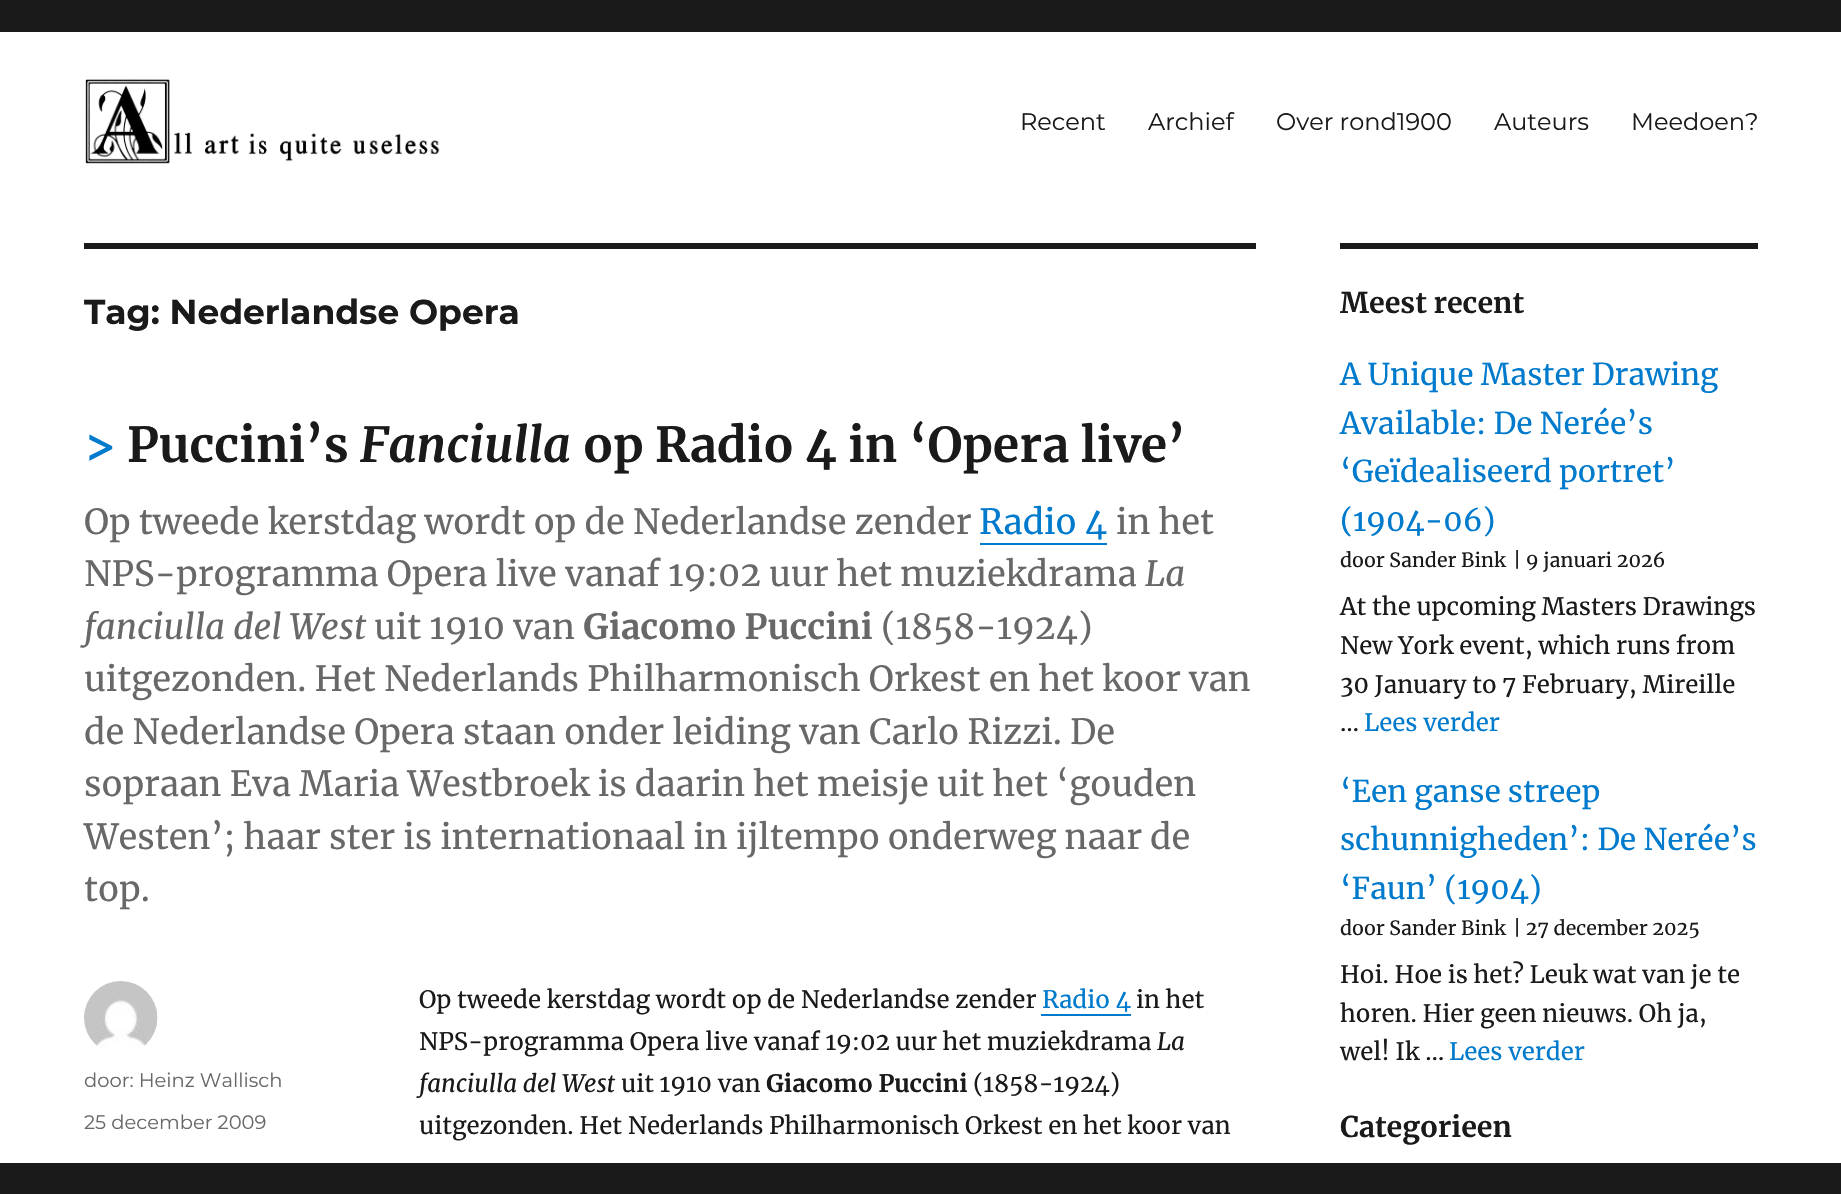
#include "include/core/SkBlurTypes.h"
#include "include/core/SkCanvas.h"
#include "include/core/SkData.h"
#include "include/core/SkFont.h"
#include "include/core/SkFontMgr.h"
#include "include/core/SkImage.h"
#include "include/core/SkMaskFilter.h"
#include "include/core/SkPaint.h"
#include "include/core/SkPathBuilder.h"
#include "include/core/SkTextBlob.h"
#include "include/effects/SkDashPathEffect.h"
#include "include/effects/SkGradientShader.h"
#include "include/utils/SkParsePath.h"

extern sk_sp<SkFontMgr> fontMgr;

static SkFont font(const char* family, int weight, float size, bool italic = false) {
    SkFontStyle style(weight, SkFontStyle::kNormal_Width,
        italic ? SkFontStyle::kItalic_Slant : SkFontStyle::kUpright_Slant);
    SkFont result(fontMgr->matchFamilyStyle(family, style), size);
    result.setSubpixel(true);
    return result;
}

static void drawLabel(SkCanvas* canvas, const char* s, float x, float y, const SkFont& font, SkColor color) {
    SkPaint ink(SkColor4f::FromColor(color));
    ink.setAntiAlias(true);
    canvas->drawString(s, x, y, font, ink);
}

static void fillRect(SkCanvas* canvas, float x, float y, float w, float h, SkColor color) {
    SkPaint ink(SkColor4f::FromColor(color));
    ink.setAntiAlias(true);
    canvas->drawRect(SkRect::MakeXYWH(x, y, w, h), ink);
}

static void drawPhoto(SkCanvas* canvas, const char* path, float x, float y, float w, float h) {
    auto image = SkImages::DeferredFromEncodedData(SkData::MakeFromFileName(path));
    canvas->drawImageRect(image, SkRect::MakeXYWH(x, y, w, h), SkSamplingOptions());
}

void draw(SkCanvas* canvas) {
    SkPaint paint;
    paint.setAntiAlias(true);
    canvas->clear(0xFFFFFFFF);
    fillRect(canvas, 0, 0, 1841, 32, 0xFF1A1A1A);
    drawPhoto(canvas, "assets/img1.png", 85, 79, 355, 85);
    SkFont font1 = font("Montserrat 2", 100, 24);
    drawLabel(canvas, "Recent", 1020, 130, font1, 0xFF1A1A1A);
    drawLabel(canvas, "Archief", 1148, 130, font1, 0xFF1A1A1A);
    drawLabel(canvas, "Over rond1900", 1276, 130, font1, 0xFF1A1A1A);
    drawLabel(canvas, "Auteurs", 1494, 130, font1, 0xFF1A1A1A);
    drawLabel(canvas, "Meedoen?", 1631, 130, font1, 0xFF1A1A1A);
    fillRect(canvas, 84, 243, 1172, 6, 0xFF1A1A1A);
    SkFont font2 = font("Montserrat", 100, 34.5f);
    drawLabel(canvas, "Tag: Nederlandse Opera", 84, 324, font2, 0xFF1A1A1A);
    SkFont font3 = font("Merriweather", 700, 48);
    drawLabel(canvas, ">", 84, 462, font3, 0xFF007ACC);
    drawLabel(canvas, "Puccini’s", 127, 462, font3, 0xFF1A1A1A);
    SkFont font4 = font("Merriweather", 700, 48, true);
    drawLabel(canvas, "Fanciulla", 360, 462, font4, 0xFF1A1A1A);
    drawLabel(canvas, "op Radio 4 in ‘Opera live’", 583, 462, font3, 0xFF1A1A1A);
    SkFont font5 = font("Merriweather", 400, 34.5f);
    drawLabel(canvas, "Op tweede kerstdag wordt op de Nederlandse zender", 84, 534, font5, 0xFF686868);
    drawLabel(canvas, "Radio 4", 979, 534, font5, 0xFF007ACC);
    fillRect(canvas, 980, 543, 127, 2, 0xFF007ACC);
    drawLabel(canvas, "in het", 1116, 534, font5, 0xFF686868);
    drawLabel(canvas, "NPS-programma Opera live vanaf 19:02 uur het muziekdrama", 84, 586, font5, 0xFF686868);
    SkFont font6 = font("Merriweather", 400, 34.5f, true);
    drawLabel(canvas, "La", 1145, 586, font6, 0xFF686868);
    drawLabel(canvas, "fanciulla del West", 84, 639, font6, 0xFF686868);
    drawLabel(canvas, "uit 1910 van", 374, 639, font5, 0xFF686868);
    SkFont font7 = font("Merriweather", 700, 34.5f);
    drawLabel(canvas, "Giacomo Puccini", 583, 639, font7, 0xFF686868);
    drawLabel(canvas, "(1858-1924)", 881, 639, font5, 0xFF686868);
    drawLabel(canvas, "uitgezonden. Het Nederlands Philharmonisch Orkest en het koor van", 84, 691, font5, 0xFF686868);
    drawLabel(canvas, "de Nederlandse Opera staan onder leiding van Carlo Rizzi. De", 84, 744, font5, 0xFF686868);
    drawLabel(canvas, "sopraan Eva Maria Westbroek is daarin het meisje uit het ‘gouden", 84, 796, font5, 0xFF686868);
    drawLabel(canvas, "Westen’; haar ster is internationaal in ijltempo onderweg naar de", 84, 849, font5, 0xFF686868);
    drawLabel(canvas, "top.", 84, 901, font5, 0xFF686868);
    drawPhoto(canvas, "assets/img2.png", 84, 981, 74, 67);
    SkFont font8 = font("Montserrat 2", 100, 19.5f);
    drawLabel(canvas, "door: Heinz Wallisch", 84, 1087, font8, 0xFF686868);
    drawLabel(canvas, "25 december 2009", 84, 1129, font8, 0xFF686868);
    SkFont font9 = font("Merriweather", 400, 24);
    drawLabel(canvas, "Op tweede kerstdag wordt op de Nederlandse zender", 419, 1008, font9, 0xFF1A1A1A);
    drawLabel(canvas, "Radio 4", 1042, 1008, font9, 0xFF007ACC);
    fillRect(canvas, 1041, 1014, 90, 2, 0xFF007ACC);
    drawLabel(canvas, "in het", 1136, 1008, font9, 0xFF1A1A1A);
    drawLabel(canvas, "NPS-programma Opera live vanaf 19:02 uur het muziekdrama", 419, 1050, font9, 0xFF1A1A1A);
    SkFont font10 = font("Merriweather", 400, 24, true);
    drawLabel(canvas, "La", 1157, 1050, font10, 0xFF1A1A1A);
    drawLabel(canvas, "fanciulla del West", 419, 1092, font10, 0xFF1A1A1A);
    drawLabel(canvas, "uit 1910 van", 621, 1092, font9, 0xFF1A1A1A);
    SkFont font11 = font("Merriweather", 700, 24);
    drawLabel(canvas, "Giacomo Puccini", 766, 1092, font11, 0xFF1A1A1A);
    drawLabel(canvas, "(1858-1924)", 973, 1092, font9, 0xFF1A1A1A);
    drawLabel(canvas, "uitgezonden. Het Nederlands Philharmonisch Orkest en het koor van", 419, 1134, font9, 0xFF1A1A1A);
    fillRect(canvas, 1340, 243, 418, 6, 0xFF1A1A1A);
    SkFont font12 = font("Merriweather", 700, 28.5f);
    drawLabel(canvas, "Meest recent", 1340, 313, font12, 0xFF1A1A1A);
    SkFont font13 = font("Merriweather", 400, 30);
    drawLabel(canvas, "A Unique Master Drawing", 1340, 385, font13, 0xFF007ACC);
    drawLabel(canvas, "Available: De Nerée’s", 1340, 434, font13, 0xFF007ACC);
    drawLabel(canvas, "‘Geïdealiseerd portret’", 1340, 482, font13, 0xFF007ACC);
    drawLabel(canvas, "(1904-06)", 1340, 531, font13, 0xFF007ACC);
    SkFont font14 = font("Merriweather", 400, 19.5f);
    drawLabel(canvas, "door Sander Bink", 1340, 567, font14, 0xFF1A1A1A);
    drawLabel(canvas, "| 9 januari 2026", 1513, 567, font14, 0xFF1A1A1A);
    drawLabel(canvas, "At the upcoming Masters Drawings", 1340, 615, font9, 0xFF1A1A1A);
    drawLabel(canvas, "New York event, which runs from", 1340, 654, font9, 0xFF1A1A1A);
    drawLabel(canvas, "30 January to 7 February, Mireille", 1340, 693, font9, 0xFF1A1A1A);
    drawLabel(canvas, "…", 1340, 731, font9, 0xFF1A1A1A);
    drawLabel(canvas, "Lees verder", 1364, 731, font9, 0xFF007ACC);
    drawLabel(canvas, "‘Een ganse streep", 1340, 802, font13, 0xFF007ACC);
    drawLabel(canvas, "schunnigheden’: De Nerée’s", 1340, 850, font13, 0xFF007ACC);
    drawLabel(canvas, "‘Faun’ (1904)", 1340, 899, font13, 0xFF007ACC);
    drawLabel(canvas, "door Sander Bink", 1340, 935, font14, 0xFF1A1A1A);
    drawLabel(canvas, "| 27 december 2025", 1513, 935, font14, 0xFF1A1A1A);
    drawLabel(canvas, "Hoi. Hoe is het? Leuk wat van je te", 1340, 983, font9, 0xFF1A1A1A);
    drawLabel(canvas, "horen. Hier geen nieuws. Oh ja,", 1340, 1022, font9, 0xFF1A1A1A);
    drawLabel(canvas, "wel! Ik …", 1340, 1060, font9, 0xFF1A1A1A);
    drawLabel(canvas, "Lees verder", 1449, 1060, font9, 0xFF007ACC);
    drawLabel(canvas, "Categorieen", 1340, 1137, font12, 0xFF1A1A1A);
    fillRect(canvas, 0, 1163, 1841, 31, 0xFF1A1A1A);
}
